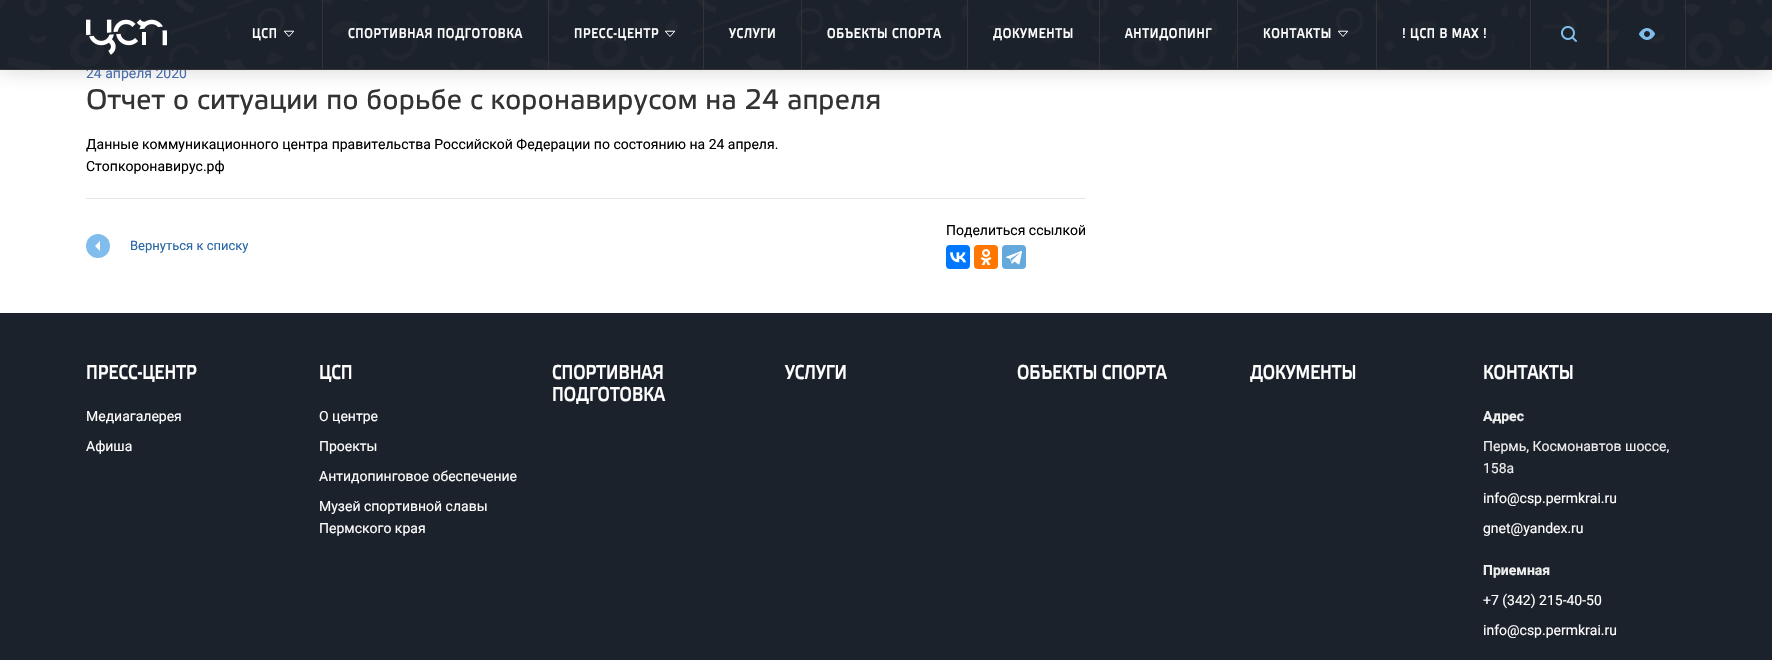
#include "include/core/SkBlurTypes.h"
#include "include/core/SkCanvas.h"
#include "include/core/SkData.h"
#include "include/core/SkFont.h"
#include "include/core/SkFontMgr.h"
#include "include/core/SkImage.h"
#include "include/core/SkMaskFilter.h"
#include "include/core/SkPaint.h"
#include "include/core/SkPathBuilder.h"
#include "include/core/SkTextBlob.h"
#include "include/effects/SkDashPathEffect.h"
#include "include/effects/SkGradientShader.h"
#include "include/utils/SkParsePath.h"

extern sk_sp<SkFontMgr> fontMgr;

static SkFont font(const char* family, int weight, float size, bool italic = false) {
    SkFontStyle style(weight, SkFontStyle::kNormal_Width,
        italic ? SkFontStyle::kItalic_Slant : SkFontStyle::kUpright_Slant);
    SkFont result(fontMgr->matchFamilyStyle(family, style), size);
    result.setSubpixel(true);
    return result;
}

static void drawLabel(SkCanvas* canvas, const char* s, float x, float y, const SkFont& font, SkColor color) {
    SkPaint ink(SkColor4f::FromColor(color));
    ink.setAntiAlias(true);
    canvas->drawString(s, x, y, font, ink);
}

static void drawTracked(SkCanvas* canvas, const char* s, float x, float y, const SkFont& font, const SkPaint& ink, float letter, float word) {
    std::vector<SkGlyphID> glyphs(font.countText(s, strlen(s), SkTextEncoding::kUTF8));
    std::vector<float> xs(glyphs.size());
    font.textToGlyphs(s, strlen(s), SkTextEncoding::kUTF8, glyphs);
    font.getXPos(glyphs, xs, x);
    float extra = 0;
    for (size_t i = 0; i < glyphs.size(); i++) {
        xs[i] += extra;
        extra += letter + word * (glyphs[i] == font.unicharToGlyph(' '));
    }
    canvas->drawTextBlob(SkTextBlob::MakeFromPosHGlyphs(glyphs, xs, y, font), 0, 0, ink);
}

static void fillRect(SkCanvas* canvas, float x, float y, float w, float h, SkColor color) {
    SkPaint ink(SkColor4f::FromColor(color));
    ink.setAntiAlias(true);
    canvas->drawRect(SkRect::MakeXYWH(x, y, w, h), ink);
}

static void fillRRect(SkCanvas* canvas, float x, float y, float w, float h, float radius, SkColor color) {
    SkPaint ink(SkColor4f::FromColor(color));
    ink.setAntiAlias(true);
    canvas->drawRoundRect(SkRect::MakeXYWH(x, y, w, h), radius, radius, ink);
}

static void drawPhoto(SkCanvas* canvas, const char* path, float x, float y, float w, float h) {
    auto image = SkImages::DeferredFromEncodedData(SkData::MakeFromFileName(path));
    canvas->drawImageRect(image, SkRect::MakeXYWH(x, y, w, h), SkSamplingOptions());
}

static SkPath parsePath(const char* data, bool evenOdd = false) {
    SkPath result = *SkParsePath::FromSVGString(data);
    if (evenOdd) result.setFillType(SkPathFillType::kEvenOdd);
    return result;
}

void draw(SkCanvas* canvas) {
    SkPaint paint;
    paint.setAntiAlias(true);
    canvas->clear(0xFFFFFFFF);
    paint.setColor(0x40333333);
    paint.setMaskFilter(SkMaskFilter::MakeBlur(kNormal_SkBlurStyle, 11.5f));
    canvas->drawRect(SkRect::MakeXYWH(0, -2, 1772, 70), paint);
    paint.setMaskFilter(nullptr);
    SkFont font1 = font("Roboto", 400, 14);
    drawLabel(canvas, "24 апреля 2020", 86, 78, font1, 0xFF486DAA);
    fillRect(canvas, 0, 0, 1772, 69, 0xFF1C222B);
    drawPhoto(canvas, "assets/img1.png", 0, 0, 1772, 69);
    fillRect(canvas, 0, 69, 1772, 1, 0xFF343232);
    drawPhoto(canvas, "assets/img2.png", 86, 19, 81, 36);
    fillRect(canvas, 227, 0, 1285, 69, 0xFF1C222B);
    drawPhoto(canvas, "assets/img3.png", 227, 0, 1281, 69);
    fillRect(canvas, 322, 0, 1, 69, 0xFF343232);
    SkFont font2 = font("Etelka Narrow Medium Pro", 500, 14);
    paint.setColor(0xFFFFFFFF);
    drawTracked(canvas, "ЦСП", 252, 38, font2, paint, 0.7f, 0);
    paint.setStroke(true);
    paint.setStrokeWidth(1);
    paint.setStrokeCap(SkPaint::kRound_Cap);
    paint.setStrokeJoin(SkPaint::kRound_Join);
    canvas->drawPath(parsePath("M293.5 31.5L289 36.5L284.5 31.5Z"), paint);
    fillRect(canvas, 548, 0, 1, 69, 0xFF343232);
    paint.setStroke(false);
    drawTracked(canvas, "СПОРТИВНАЯ ПОДГОТОВКА", 348, 38, font2, paint, 0.7f, 0);
    fillRect(canvas, 703, 0, 1, 69, 0xFF343232);
    drawTracked(canvas, "ПРЕСС-ЦЕНТР", 574, 38, font2, paint, 0.7f, 0);
    paint.setStroke(true);
    canvas->drawPath(parsePath("M674.5 31.5L670 36.5L665.5 31.5Z"), paint);
    fillRect(canvas, 801, 0, 1, 69, 0xFF343232);
    paint.setStroke(false);
    drawTracked(canvas, "УСЛУГИ", 729, 38, font2, paint, 0.7f, 0);
    fillRect(canvas, 967, 0, 1, 69, 0xFF343232);
    drawTracked(canvas, "ОБЪЕКТЫ СПОРТА", 827, 38, font2, paint, 0.7f, 0);
    fillRect(canvas, 1099, 0, 1, 69, 0xFF343232);
    drawTracked(canvas, "ДОКУМЕНТЫ", 993, 38, font2, paint, 0.7f, 0);
    fillRect(canvas, 1237, 0, 1, 69, 0xFF343232);
    drawTracked(canvas, "АНТИДОПИНГ", 1125, 38, font2, paint, 0.7f, 0);
    fillRect(canvas, 1376, 0, 1, 69, 0xFF343232);
    drawTracked(canvas, "КОНТАКТЫ", 1263, 38, font2, paint, 0.7f, 0);
    paint.setStroke(true);
    canvas->drawPath(parsePath("M1347.5 31.5L1343 36.5L1338.5 31.5Z"), paint);
    paint.setStroke(false);
    drawTracked(canvas, "! ЦСП В MAX !", 1402, 38, font2, paint, 0.7f, 0);
    fillRect(canvas, 1607, 0, 2, 69, 0xFF343232);
    fillRect(canvas, 1530, 0, 1, 69, 0xFF343232);
    drawPhoto(canvas, "assets/img4.png", 1561, 26, 16, 16);
    fillRect(canvas, 1685, 0, 1, 69, 0xFF343232);
    drawPhoto(canvas, "assets/img5.png", 1639, 28, 16, 12);
    SkFont font3 = font("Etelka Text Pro", 400, 28);
    drawLabel(canvas, "Отчет о ситуации по борьбе с коронавирусом на 24 апреля", 86, 109, font3, 0xFF333333);
    drawLabel(canvas, "Данные коммуникационного центра правительства Российской Федерации по состоянию на 24 апреля.", 86, 149, font1, 0xFF000000);
    drawLabel(canvas, "Стопкоронавирус.рф", 86, 171, font1, 0xFF000000);
    fillRect(canvas, 86, 198, 1000, 1, 0xFFE6E6E6);
    drawLabel(canvas, "Поделиться ссылкой", 946, 235, font1, 0xFF000000);
    fillRRect(canvas, 946, 245, 24, 24, 4, 0xFF0077FF);
    drawPhoto(canvas, "assets/img6.png", 950, 252, 16, 11);
    fillRRect(canvas, 974, 245, 24, 24, 4, 0xFFFF7700);
    drawPhoto(canvas, "assets/img7.png", 980, 249, 12, 16);
    fillRRect(canvas, 1002, 245, 24, 24, 4, 0xFF64A9DC);
    drawPhoto(canvas, "assets/img8.png", 1006, 251, 16, 14);
    paint.setColor(0xFF81BDEC);
    canvas->drawCircle(98, 246, 12, paint);
    SkFont font4 = font("Roboto", 400, 13);
    drawLabel(canvas, "Вернуться к списку", 130, 250, font4, 0xFF2665A4);
    paint.setColor(0xFFFFFFFF);
    canvas->drawPath(parsePath("M100 241V251L95 246Z"), paint);
    fillRect(canvas, 0, 313, 1772, 347, 0xFF1C222B);
    SkFont font5 = font("Etelka Narrow Medium Pro", 500, 20);
    drawLabel(canvas, "ПРЕСС-ЦЕНТР", 86, 379, font5, 0xFFFFFFFF);
    drawLabel(canvas, "Медиагалерея", 86, 421, font1, 0xFFFFFFFF);
    drawLabel(canvas, "Афиша", 86, 451, font1, 0xFFFFFFFF);
    drawLabel(canvas, "ЦСП", 319, 379, font5, 0xFFFFFFFF);
    drawLabel(canvas, "О центре", 319, 421, font1, 0xFFFFFFFF);
    drawLabel(canvas, "Проекты", 319, 451, font1, 0xFFFFFFFF);
    drawLabel(canvas, "Антидопинговое обеспечение", 319, 481, font1, 0xFFFFFFFF);
    drawLabel(canvas, "Музей спортивной славы", 319, 511, font1, 0xFFFFFFFF);
    drawLabel(canvas, "Пермского края", 319, 533, font1, 0xFFFFFFFF);
    drawLabel(canvas, "СПОРТИВНАЯ", 552, 379, font5, 0xFFFFFFFF);
    drawLabel(canvas, "ПОДГОТОВКА", 552, 401, font5, 0xFFFFFFFF);
    drawLabel(canvas, "УСЛУГИ", 785, 379, font5, 0xFFFFFFFF);
    drawLabel(canvas, "ОБЪЕКТЫ СПОРТА", 1017, 379, font5, 0xFFFFFFFF);
    drawLabel(canvas, "ДОКУМЕНТЫ", 1250, 379, font5, 0xFFFFFFFF);
    drawLabel(canvas, "КОНТАКТЫ", 1483, 379, font5, 0xFFFFFFFF);
    SkFont font6 = font("Roboto", 700, 14);
    drawLabel(canvas, "Адрес", 1483, 421, font6, 0xFFEEEEEE);
    drawLabel(canvas, "Пермь, Космонавтов шоссе,", 1483, 451, font1, 0xFFEEEEEE);
    drawLabel(canvas, "158а", 1483, 473, font1, 0xFFEEEEEE);
    drawLabel(canvas, "info@csp.permkrai.ru", 1483, 503, font1, 0xFFFFFFFF);
    drawLabel(canvas, "gnet@yandex.ru", 1483, 533, font1, 0xFFFFFFFF);
    drawLabel(canvas, "Приемная", 1483, 575, font6, 0xFFEEEEEE);
    drawLabel(canvas, "+7 (342) 215-40-50", 1483, 605, font1, 0xFFFFFFFF);
    drawLabel(canvas, "info@csp.permkrai.ru", 1483, 635, font1, 0xFFFFFFFF);
}
